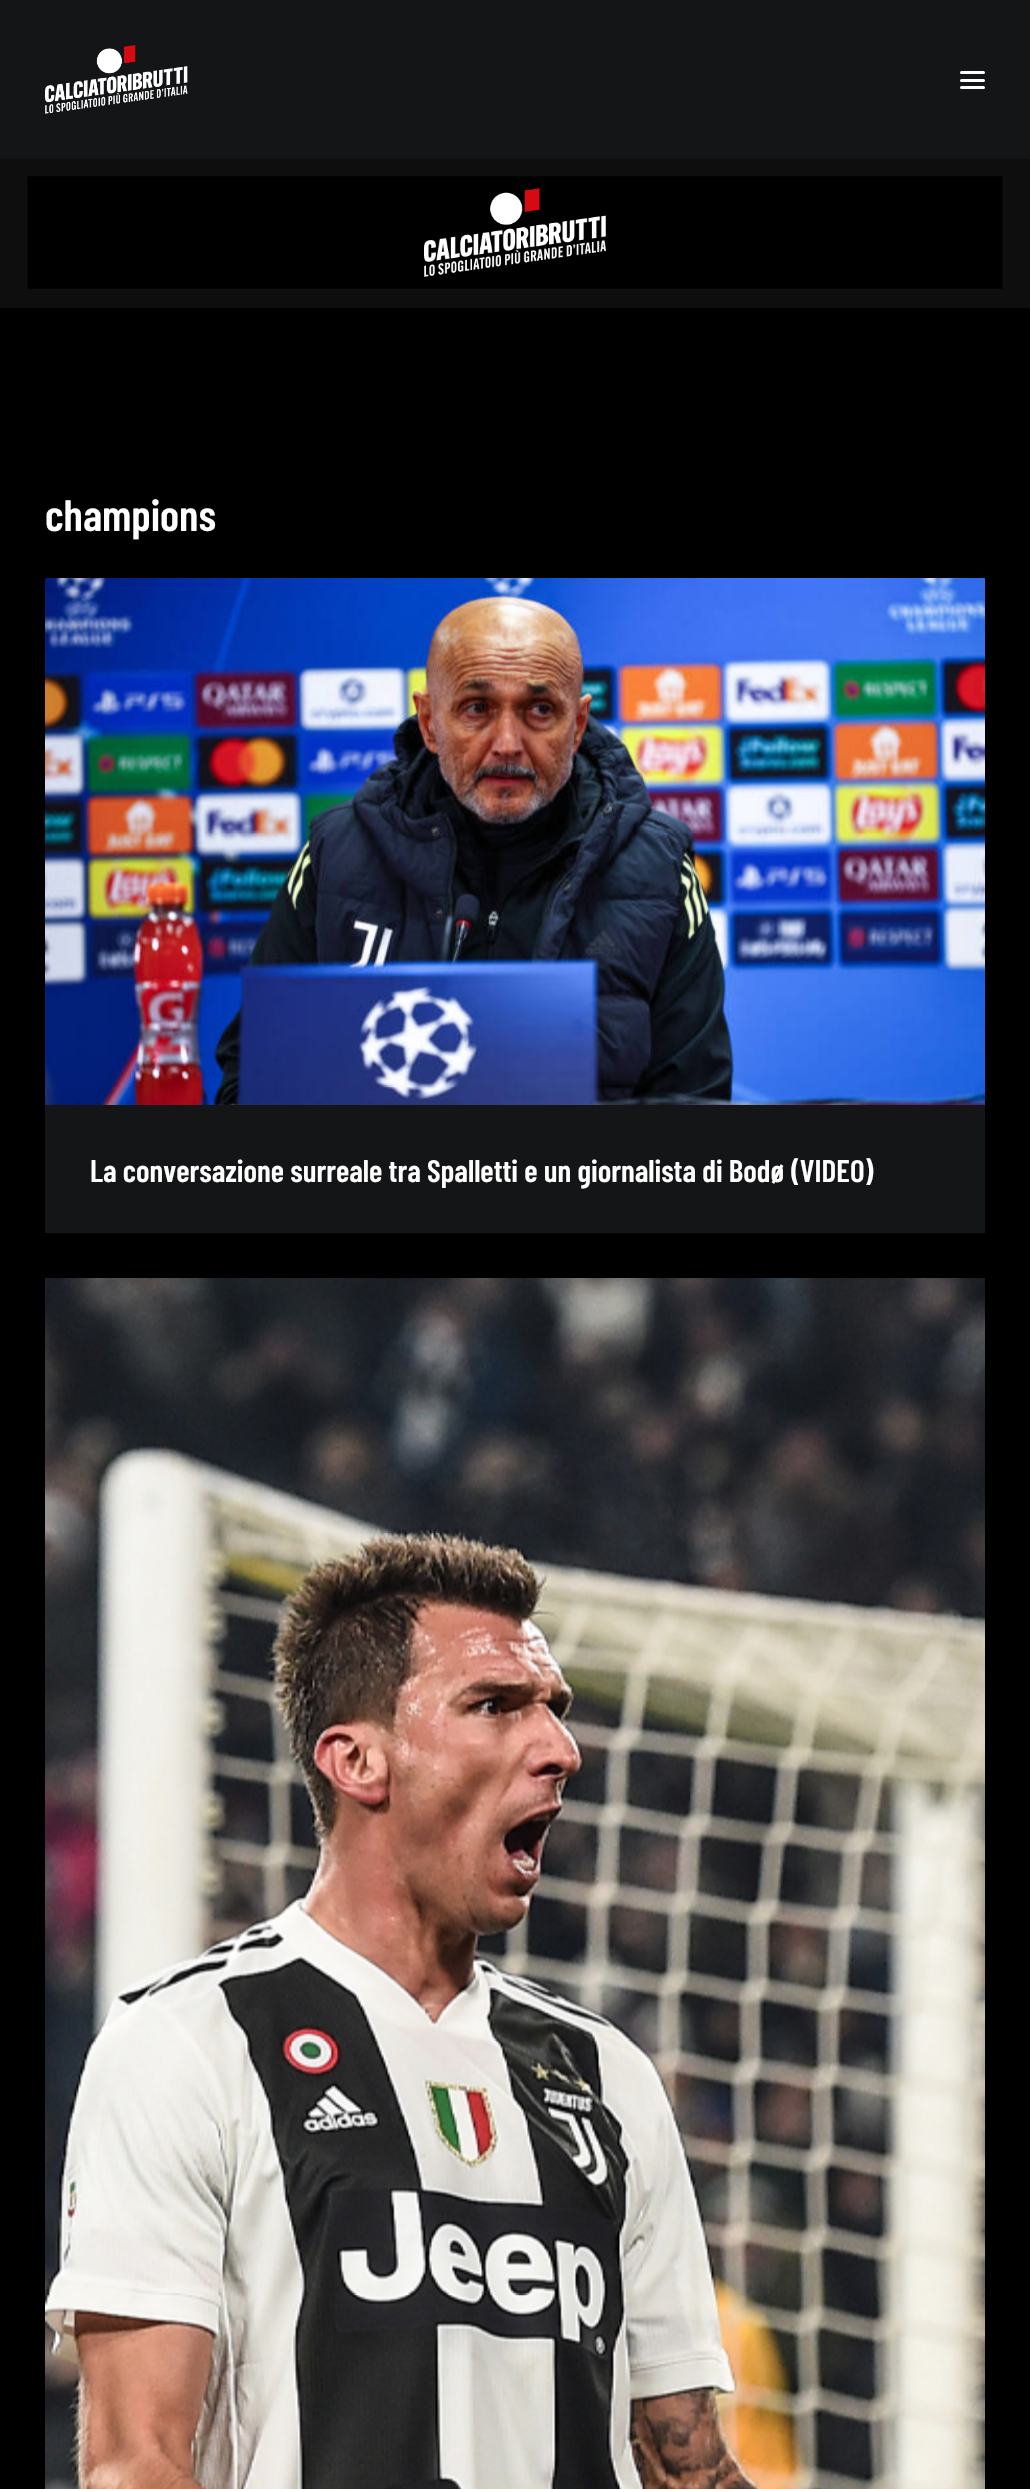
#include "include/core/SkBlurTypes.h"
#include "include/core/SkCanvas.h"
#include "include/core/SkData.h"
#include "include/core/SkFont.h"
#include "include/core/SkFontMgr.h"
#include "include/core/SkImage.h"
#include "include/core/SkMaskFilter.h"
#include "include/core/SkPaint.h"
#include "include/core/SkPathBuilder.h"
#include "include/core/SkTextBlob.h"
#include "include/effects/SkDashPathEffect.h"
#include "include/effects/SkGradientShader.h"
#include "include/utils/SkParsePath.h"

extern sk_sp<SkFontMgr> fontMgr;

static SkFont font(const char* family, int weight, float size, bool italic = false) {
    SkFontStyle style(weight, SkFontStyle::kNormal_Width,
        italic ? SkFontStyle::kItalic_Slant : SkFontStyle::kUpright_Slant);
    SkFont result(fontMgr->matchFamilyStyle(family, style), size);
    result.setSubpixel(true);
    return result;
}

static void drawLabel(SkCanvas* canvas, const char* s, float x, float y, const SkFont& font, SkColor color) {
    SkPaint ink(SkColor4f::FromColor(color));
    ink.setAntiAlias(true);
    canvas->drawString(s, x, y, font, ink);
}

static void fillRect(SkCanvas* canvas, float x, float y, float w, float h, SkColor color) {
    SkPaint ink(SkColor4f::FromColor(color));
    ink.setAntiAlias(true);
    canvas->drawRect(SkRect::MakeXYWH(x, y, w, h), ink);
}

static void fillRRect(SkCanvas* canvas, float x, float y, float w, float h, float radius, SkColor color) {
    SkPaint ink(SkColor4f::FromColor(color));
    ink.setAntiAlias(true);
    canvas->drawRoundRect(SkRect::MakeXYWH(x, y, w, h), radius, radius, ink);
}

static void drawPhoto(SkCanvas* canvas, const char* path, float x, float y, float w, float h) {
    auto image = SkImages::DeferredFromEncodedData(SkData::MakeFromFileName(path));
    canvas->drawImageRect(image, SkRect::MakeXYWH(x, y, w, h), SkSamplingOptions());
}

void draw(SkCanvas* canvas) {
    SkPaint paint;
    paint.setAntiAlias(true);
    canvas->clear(0xFF0E0E0E);
    fillRect(canvas, 0, 0, 1030, 159, 0xFF141517);
    drawPhoto(canvas, "assets/img1.png", 45, 45, 143, 69);
    fillRRect(canvas, 960, 79, 25, 3, 1.5f, 0xFFFFFFFF);
    fillRRect(canvas, 960, 71, 25, 3, 1.5f, 0xFFFFFFFF);
    fillRRect(canvas, 960, 86, 25, 3, 1.5f, 0xFFFFFFFF);
    drawPhoto(canvas, "assets/img2.png", 27, 176, 976, 113);
    fillRect(canvas, 0, 308, 1030, 2181, 0xFF000000);
    SkFont font1 = font("Barlow Condensed", 600, 44);
    drawLabel(canvas, "champions", 45, 531, font1, 0xFFFFFFFF);
    fillRect(canvas, 45, 1105, 940, 128, 0xFF141517);
    drawPhoto(canvas, "assets/img3.png", 45, 578, 940, 527);
    SkFont font2 = font("Barlow Condensed", 600, 31.25f);
    drawLabel(canvas, "La conversazione surreale tra Spalletti e un giornalista di Bodø (VIDEO)", 90, 1182, font2, 0xFFFFFFFF);
    drawPhoto(canvas, "assets/img4.png", 45, 1278, 940, 1211);
}
